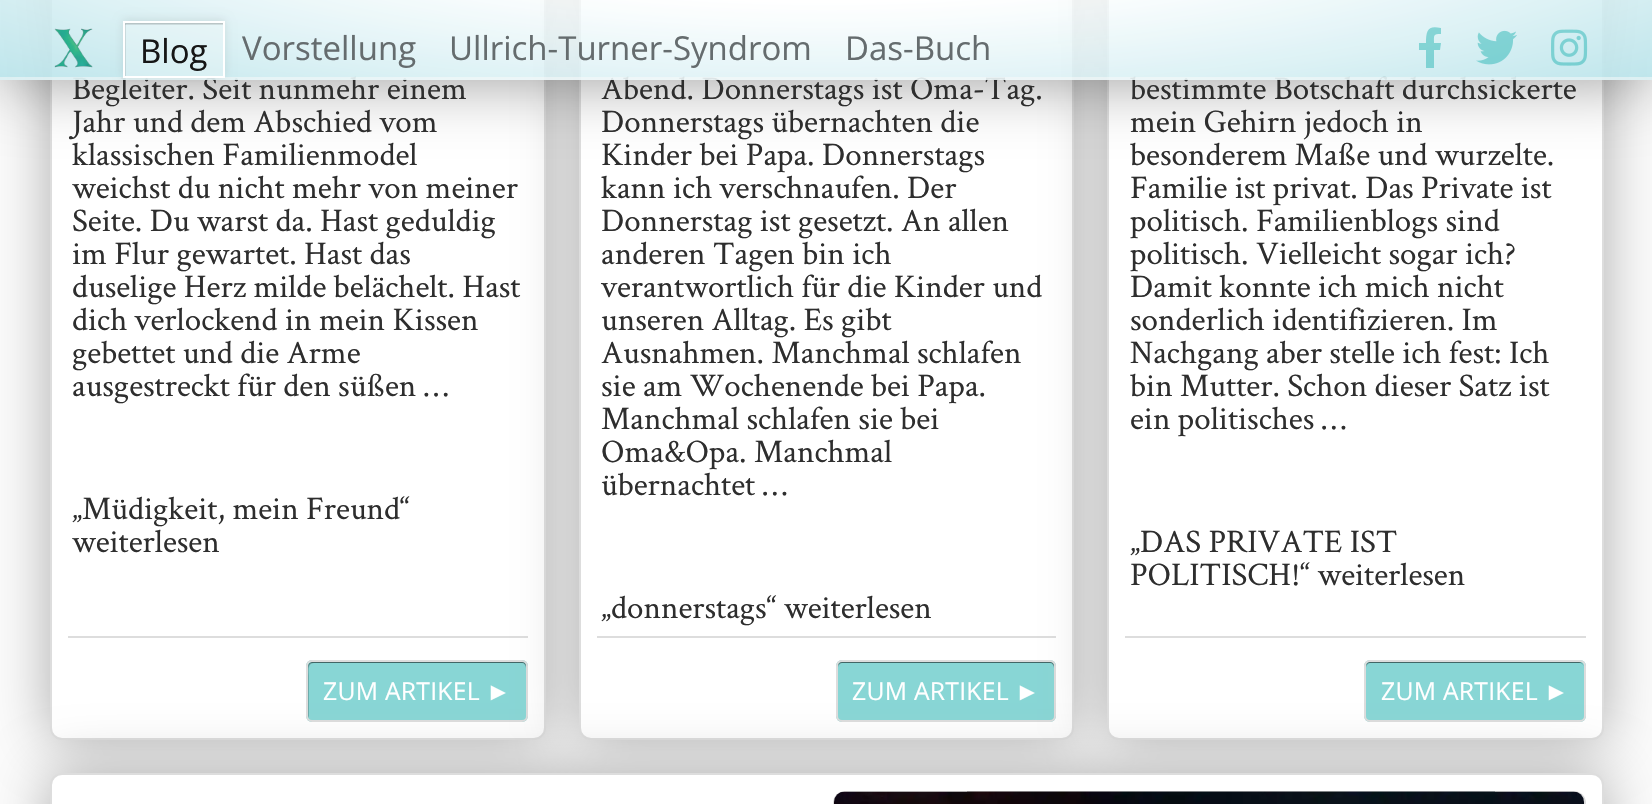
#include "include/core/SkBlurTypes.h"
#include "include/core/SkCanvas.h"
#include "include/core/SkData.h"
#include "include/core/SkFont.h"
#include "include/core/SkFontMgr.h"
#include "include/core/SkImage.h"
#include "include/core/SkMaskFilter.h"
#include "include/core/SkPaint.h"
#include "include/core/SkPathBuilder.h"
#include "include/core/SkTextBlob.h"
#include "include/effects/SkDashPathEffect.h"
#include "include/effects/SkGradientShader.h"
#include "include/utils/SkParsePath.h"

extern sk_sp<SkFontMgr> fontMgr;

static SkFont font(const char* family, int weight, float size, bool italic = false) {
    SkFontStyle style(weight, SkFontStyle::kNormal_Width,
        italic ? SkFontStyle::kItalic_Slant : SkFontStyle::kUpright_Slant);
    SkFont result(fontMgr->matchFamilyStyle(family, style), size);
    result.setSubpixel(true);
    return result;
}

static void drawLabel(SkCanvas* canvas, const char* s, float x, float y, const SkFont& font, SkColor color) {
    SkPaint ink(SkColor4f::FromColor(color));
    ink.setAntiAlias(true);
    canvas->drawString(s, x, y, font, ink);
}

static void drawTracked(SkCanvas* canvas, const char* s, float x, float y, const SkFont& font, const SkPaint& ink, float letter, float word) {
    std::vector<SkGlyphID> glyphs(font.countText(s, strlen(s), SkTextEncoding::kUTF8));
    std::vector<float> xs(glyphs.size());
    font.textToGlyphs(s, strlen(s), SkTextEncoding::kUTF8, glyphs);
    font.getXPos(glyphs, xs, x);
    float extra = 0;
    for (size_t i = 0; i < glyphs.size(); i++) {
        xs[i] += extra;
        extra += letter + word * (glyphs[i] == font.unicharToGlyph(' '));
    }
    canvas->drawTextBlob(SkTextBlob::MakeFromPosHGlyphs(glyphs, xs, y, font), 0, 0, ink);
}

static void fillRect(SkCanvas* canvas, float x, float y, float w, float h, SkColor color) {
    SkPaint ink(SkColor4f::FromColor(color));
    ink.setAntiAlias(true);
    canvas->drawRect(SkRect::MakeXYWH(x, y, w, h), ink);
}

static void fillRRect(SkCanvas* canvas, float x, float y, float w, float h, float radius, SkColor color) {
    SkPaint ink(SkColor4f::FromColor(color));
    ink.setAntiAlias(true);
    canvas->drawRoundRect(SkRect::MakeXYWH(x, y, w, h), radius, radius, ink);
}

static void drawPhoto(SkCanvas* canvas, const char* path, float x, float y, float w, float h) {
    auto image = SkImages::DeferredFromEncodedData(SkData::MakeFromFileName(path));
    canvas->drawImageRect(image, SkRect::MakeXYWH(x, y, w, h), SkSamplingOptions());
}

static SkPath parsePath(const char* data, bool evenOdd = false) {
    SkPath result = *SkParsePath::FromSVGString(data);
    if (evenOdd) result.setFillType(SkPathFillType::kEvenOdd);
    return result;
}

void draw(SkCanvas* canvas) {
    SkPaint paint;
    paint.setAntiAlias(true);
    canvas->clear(0xFFFCFCFC);
    paint.setColor(0xFFABABAB);
    paint.setMaskFilter(SkMaskFilter::MakeBlur(kNormal_SkBlurStyle, 29));
    canvas->drawRoundRect(SkRect::MakeXYWH(50, -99, 496, 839), 12, 12, paint);
    paint.setMaskFilter(nullptr);
    paint.setColor(0xFFFFFFFF);
    canvas->drawRoundRect(SkRect::MakeXYWH(51, -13, 494, 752), 11, 11, paint);
    paint.setStroke(true);
    paint.setStrokeWidth(2);
    paint.setColor(0xFFDDDDDD);
    canvas->drawRoundRect(SkRect::MakeXYWH(51, -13, 494, 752), 11, 11, paint);
    fillRect(canvas, 68, 636, 460, 2, 0xFFDDDDDD);
    fillRRect(canvas, 306, 660, 222, 62, 6, 0xFF88D6D5);
    paint.setStroke(false);
    paint.setColor(0xFF528080);
    canvas->drawPath(parsePath("M312 663H522C524 663 526 665 526 668V718C527 717 527 716 527 715V667C527 664 525 662 522 662H313C310 662 308 664 308 667V668C308 665 310 663 312 663Z"), paint);
    paint.setColor(0x33000000);
    canvas->drawPath(parsePath("M314 663H525C524 662 523 662 522 662H313C310 662 308 664 308 667V715C308 716 308 717 309 718V676C309 672 307 663 314 663Z"), paint);
    paint.setStroke(true);
    paint.setColor(0xFFDDDDDD);
    canvas->drawRoundRect(SkRect::MakeXYWH(307, 661, 220, 60), 5, 5, paint);
    paint.setStroke(false);
    paint.setColor(0xFFABABAB);
    paint.setMaskFilter(SkMaskFilter::MakeBlur(kNormal_SkBlurStyle, 29));
    canvas->drawRoundRect(SkRect::MakeXYWH(579, -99, 495, 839), 12, 12, paint);
    paint.setMaskFilter(nullptr);
    paint.setColor(0xFFFFFFFF);
    canvas->drawRoundRect(SkRect::MakeXYWH(580, -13, 493, 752), 11, 11, paint);
    paint.setStroke(true);
    paint.setColor(0xFFDDDDDD);
    canvas->drawRoundRect(SkRect::MakeXYWH(580, -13, 493, 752), 11, 11, paint);
    fillRect(canvas, 597, 636, 459, 2, 0xFFDDDDDD);
    fillRRect(canvas, 836, 660, 220, 62, 6, 0xFF88D6D5);
    paint.setStroke(false);
    paint.setColor(0xFF528080);
    canvas->drawPath(parsePath("M842 663H1050C1052 663 1054 665 1054 668V718C1055 717 1055 716 1055 715V667C1055 664 1053 662 1050 662H842C839 662 837 664 837 667V668C837 665 839 663 842 663Z"), paint);
    paint.setColor(0x33000000);
    canvas->drawPath(parsePath("M843 663H1053C1052 662 1051 662 1050 662H842C839 662 837 664 837 667V715C837 716 838 718 838 719V717V668C838 665 841 663 843 663Z"), paint);
    paint.setStroke(true);
    paint.setColor(0xFFDDDDDD);
    canvas->drawRoundRect(SkRect::MakeXYWH(837, 661, 218, 60), 5, 5, paint);
    paint.setStroke(false);
    paint.setColor(0xFFABABAB);
    paint.setMaskFilter(SkMaskFilter::MakeBlur(kNormal_SkBlurStyle, 29));
    canvas->drawRoundRect(SkRect::MakeXYWH(1107, -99, 497, 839), 12, 12, paint);
    paint.setMaskFilter(nullptr);
    paint.setColor(0xFFFFFFFF);
    canvas->drawRoundRect(SkRect::MakeXYWH(1108, -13, 495, 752), 11, 11, paint);
    paint.setStroke(true);
    paint.setColor(0xFFDDDDDD);
    canvas->drawRoundRect(SkRect::MakeXYWH(1108, -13, 495, 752), 11, 11, paint);
    canvas->save();
    canvas->clipPath(parsePath("M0 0H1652V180H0ZM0-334H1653V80H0Z", true), true);
    paint.setStroke(false);
    paint.setColor(0x66000000);
    paint.setMaskFilter(SkMaskFilter::MakeBlur(kNormal_SkBlurStyle, 33));
    canvas->drawRect(SkRect::MakeXYWH(0, -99, 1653, 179), paint);
    paint.setMaskFilter(nullptr);
    canvas->restore();
    SkFont font1 = font("Crimson Text", 400, 33);
    drawLabel(canvas, "Begleiter. Seit nunmehr einem", 72, 99, font1, 0xFF2E2E2E);
    drawLabel(canvas, "Abend. Donnerstags ist Oma-Tag.", 601, 99, font1, 0xFF2E2E2E);
    drawLabel(canvas, "bestimmte Botschaft durchsickerte", 1130, 99, font1, 0xFF2E2E2E);
    {
        const SkColor colors[] = {0xBFFFFFFF, 0xBFFFFFFF, 0xE6B8E3EA};
        const float stops[] = {0.2f, 0.45f, 1};
        SkMatrix m = SkMatrix::Translate(827, -129).preScale(1169, 291);
        paint.setShader(SkGradientShader::MakeRadial({0, 0}, 1, colors, stops, 3, SkTileMode::kClamp, 0, &m));
        paint.setAlpha(255);
    }
    canvas->drawRect(SkRect::MakeXYWH(0, 0, 1652, 77), paint);
    {
        const SkColor colors[] = {0xBFFFFFFF, 0xBFFFFFFF, 0xE6B8E3EA};
        const float stops[] = {0.2f, 0.45f, 1};
        SkMatrix m = SkMatrix::Translate(827, 282).preScale(1169, 291);
        paint.setShader(SkGradientShader::MakeRadial({0, 0}, 1, colors, stops, 3, SkTileMode::kClamp, 0, &m));
        paint.setAlpha(255);
    }
    canvas->drawRect(SkRect::MakeXYWH(0, 77, 1652, 3), paint);
    fillRect(canvas, 0, 77, 1652, 3, 0x80FAFAFA);
    drawPhoto(canvas, "assets/img1.png", 54, 28, 39, 40);
    canvas->save();
    canvas->clipPath(parsePath("M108 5H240V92H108ZM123 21H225V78H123Z", true), true);
    paint.setShader(nullptr);
    paint.setColor(0x1A000000);
    paint.setMaskFilter(SkMaskFilter::MakeBlur(kNormal_SkBlurStyle, 4.5f));
    canvas->drawRect(SkRect::MakeXYWH(123, 20, 102, 57), paint);
    paint.setMaskFilter(nullptr);
    canvas->restore();
    fillRect(canvas, 125, 23, 98, 53, 0x40FAFAFA);
    fillRect(canvas, 125, 23, 99, 2, 0x1A000000);
    canvas->save();
    canvas->clipRect(SkRect::MakeXYWH(125, 23, 99, 54));
    canvas->drawPath(parsePath("M-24-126H372V225H-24ZM126 24H225V78H126Z", true), paint);
    canvas->restore();
    paint.setStroke(true);
    paint.setColor(0xFFFFFFFF);
    canvas->drawRect(SkRect::MakeXYWH(124, 22, 100, 55), paint);
    SkFont font2 = font("Open Sans", 400, 33);
    drawLabel(canvas, "Blog", 140, 63, font2, 0xFF161616);
    drawLabel(canvas, "Vorstellung", 242, 60, font2, 0xFF656C6E);
    drawLabel(canvas, "Ullrich-Turner-Syndrom", 449, 60, font2, 0xFF656C6E);
    drawLabel(canvas, "Das-Buch", 845, 60, font2, 0xFF656C6E);
    paint.setStroke(false);
    paint.setColor(0x6601A8A6);
    canvas->drawPath(parsePath("M1440 50L1441 43H1434C1434 35 1433 34 1441 34V28C1428 25 1426 30 1426 43H1419V50H1426V68H1434V50Z"), paint);
    drawPhoto(canvas, "assets/img2.png", 1476, 30, 41, 35);
    drawPhoto(canvas, "assets/img3.png", 1551, 29, 37, 37);
    drawLabel(canvas, "Jahr und dem Abschied vom", 72, 132, font1, 0xFF2E2E2E);
    drawLabel(canvas, "klassischen Familienmodel", 72, 165, font1, 0xFF2E2E2E);
    drawLabel(canvas, "weichst du nicht mehr von meiner", 72, 198, font1, 0xFF2E2E2E);
    drawLabel(canvas, "Seite. Du warst da. Hast geduldig", 72, 231, font1, 0xFF2E2E2E);
    drawLabel(canvas, "im Flur gewartet. Hast das", 72, 264, font1, 0xFF2E2E2E);
    drawLabel(canvas, "duselige Herz milde belächelt. Hast", 72, 297, font1, 0xFF2E2E2E);
    drawLabel(canvas, "dich verlockend in mein Kissen", 72, 330, font1, 0xFF2E2E2E);
    drawLabel(canvas, "gebettet und die Arme", 72, 363, font1, 0xFF2E2E2E);
    drawLabel(canvas, "ausgestreckt für den süßen …", 72, 396, font1, 0xFF2E2E2E);
    drawLabel(canvas, "„Müdigkeit, mein Freund“", 72, 519, font1, 0xFF2E2E2E);
    drawLabel(canvas, "weiterlesen", 72, 552, font1, 0xFF2E2E2E);
    SkFont font3 = font("Open Sans", 400, 24.75f);
    paint.setColor(0xFFFFFFFF);
    drawTracked(canvas, "ZUM ARTIKEL", 323, 700, font3, paint, 0.25f, 0);
    SkFont font4 = font("Liberation Sans", 400, 24.75f);
    drawTracked(canvas, "►", 486, 700, font4, paint, 0.25f, 0);
    drawLabel(canvas, "Donnerstags übernachten die", 601, 132, font1, 0xFF2E2E2E);
    drawLabel(canvas, "Kinder bei Papa. Donnerstags", 601, 165, font1, 0xFF2E2E2E);
    drawLabel(canvas, "kann ich verschnaufen. Der", 601, 198, font1, 0xFF2E2E2E);
    drawLabel(canvas, "Donnerstag ist gesetzt. An allen", 601, 231, font1, 0xFF2E2E2E);
    drawLabel(canvas, "anderen Tagen bin ich", 601, 264, font1, 0xFF2E2E2E);
    drawLabel(canvas, "verantwortlich für die Kinder und", 601, 297, font1, 0xFF2E2E2E);
    drawLabel(canvas, "unseren Alltag. Es gibt", 601, 330, font1, 0xFF2E2E2E);
    drawLabel(canvas, "Ausnahmen. Manchmal schlafen", 601, 363, font1, 0xFF2E2E2E);
    drawLabel(canvas, "sie am Wochenende bei Papa.", 601, 396, font1, 0xFF2E2E2E);
    drawLabel(canvas, "Manchmal schlafen sie bei", 601, 429, font1, 0xFF2E2E2E);
    drawLabel(canvas, "Oma&Opa. Manchmal", 601, 462, font1, 0xFF2E2E2E);
    drawLabel(canvas, "übernachtet …", 601, 495, font1, 0xFF2E2E2E);
    drawLabel(canvas, "„donnerstags“ weiterlesen", 601, 618, font1, 0xFF2E2E2E);
    drawTracked(canvas, "ZUM ARTIKEL", 852, 700, font3, paint, 0.25f, 0);
    drawTracked(canvas, "►", 1015, 700, font4, paint, 0.25f, 0);
    drawLabel(canvas, "mein Gehirn jedoch in", 1130, 132, font1, 0xFF2E2E2E);
    drawLabel(canvas, "besonderem Maße und wurzelte.", 1130, 165, font1, 0xFF2E2E2E);
    drawLabel(canvas, "Familie ist privat. Das Private ist", 1130, 198, font1, 0xFF2E2E2E);
    drawLabel(canvas, "politisch. Familienblogs sind", 1130, 231, font1, 0xFF2E2E2E);
    drawLabel(canvas, "politisch. Vielleicht sogar ich?", 1130, 264, font1, 0xFF2E2E2E);
    drawLabel(canvas, "Damit konnte ich mich nicht", 1130, 297, font1, 0xFF2E2E2E);
    drawLabel(canvas, "sonderlich identifizieren. Im", 1130, 330, font1, 0xFF2E2E2E);
    drawLabel(canvas, "Nachgang aber stelle ich fest: Ich", 1130, 363, font1, 0xFF2E2E2E);
    drawLabel(canvas, "bin Mutter. Schon dieser Satz ist", 1130, 396, font1, 0xFF2E2E2E);
    drawLabel(canvas, "ein politisches …", 1130, 429, font1, 0xFF2E2E2E);
    drawLabel(canvas, "„DAS PRIVATE IST", 1130, 552, font1, 0xFF2E2E2E);
    drawLabel(canvas, "POLITISCH!“ weiterlesen", 1130, 585, font1, 0xFF2E2E2E);
    fillRect(canvas, 1125, 636, 461, 2, 0xFFDDDDDD);
    fillRRect(canvas, 1364, 660, 222, 62, 6, 0xFF88D6D5);
    paint.setColor(0xFF528080);
    canvas->drawPath(parsePath("M1370 663H1580C1582 663 1584 665 1584 668C1584 665 1582 662 1579 662H1369C1366 663 1365 665 1365 668C1365 665 1367 663 1370 663Z"), paint);
    paint.setColor(0x33000000);
    canvas->drawPath(parsePath("M1371 663H1582C1581 662 1580 662 1579 662H1370C1367 662 1365 664 1365 667V715C1365 716 1366 718 1366 719V717V668C1366 665 1369 663 1371 663Z"), paint);
    paint.setStroke(true);
    paint.setColor(0xFFDDDDDD);
    canvas->drawRoundRect(SkRect::MakeXYWH(1365, 661, 220, 60), 5, 5, paint);
    paint.setStroke(false);
    paint.setColor(0xFFFFFFFF);
    drawTracked(canvas, "ZUM ARTIKEL", 1381, 700, font3, paint, 0.25f, 0);
    drawTracked(canvas, "►", 1544, 700, font4, paint, 0.25f, 0);
    paint.setColor(0xFFABABAB);
    paint.setMaskFilter(SkMaskFilter::MakeBlur(kNormal_SkBlurStyle, 29));
    canvas->drawRoundRect(SkRect::MakeXYWH(50, 773, 1554, 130), 12, 12, paint);
    paint.setMaskFilter(nullptr);
    paint.setColor(0xFFFFFFFF);
    canvas->drawRoundRect(SkRect::MakeXYWH(51, 774, 1552, 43), 11, 11, paint);
    paint.setStroke(true);
    paint.setColor(0xFFDDDDDD);
    canvas->drawRoundRect(SkRect::MakeXYWH(51, 774, 1552, 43), 11, 11, paint);
    canvas->drawRoundRect(SkRect::MakeXYWH(834, 792, 751, 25), 11, 11, paint);
    drawPhoto(canvas, "assets/img4.png", 834, 791, 750, 13);
}
